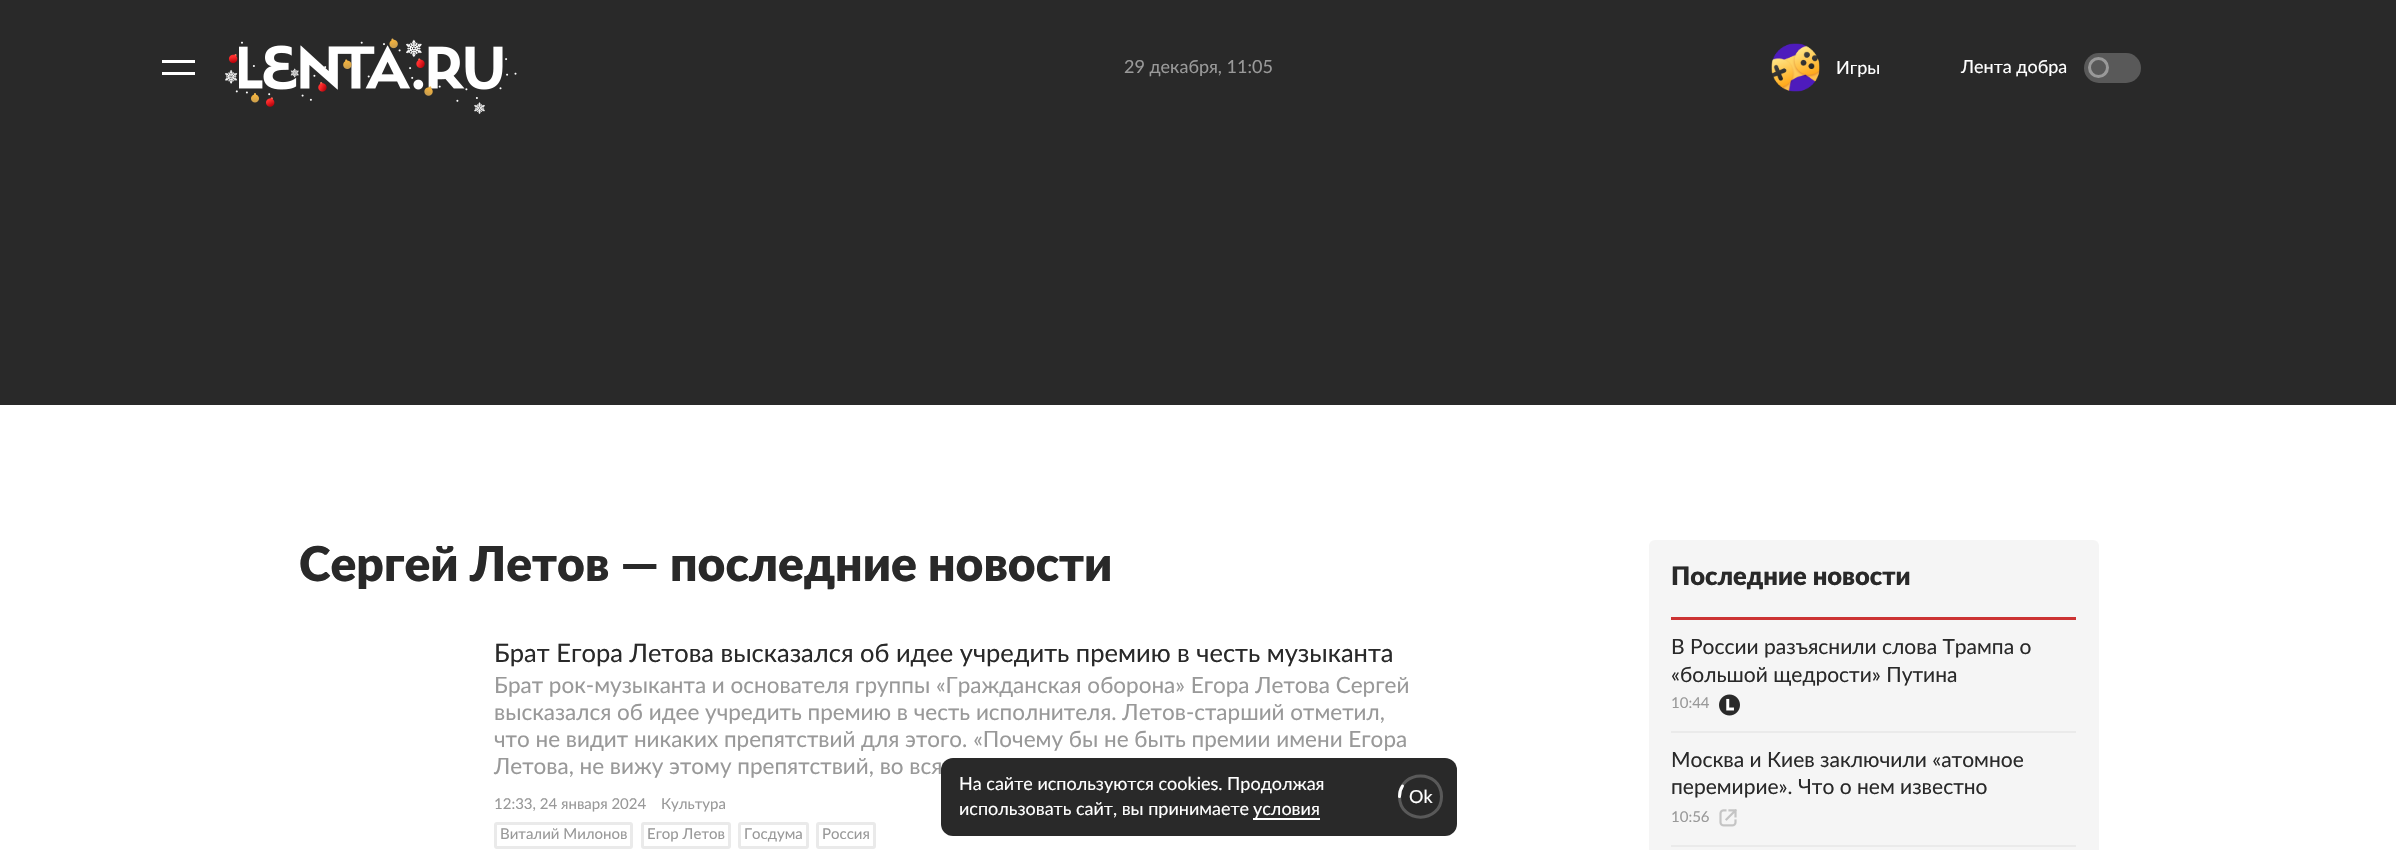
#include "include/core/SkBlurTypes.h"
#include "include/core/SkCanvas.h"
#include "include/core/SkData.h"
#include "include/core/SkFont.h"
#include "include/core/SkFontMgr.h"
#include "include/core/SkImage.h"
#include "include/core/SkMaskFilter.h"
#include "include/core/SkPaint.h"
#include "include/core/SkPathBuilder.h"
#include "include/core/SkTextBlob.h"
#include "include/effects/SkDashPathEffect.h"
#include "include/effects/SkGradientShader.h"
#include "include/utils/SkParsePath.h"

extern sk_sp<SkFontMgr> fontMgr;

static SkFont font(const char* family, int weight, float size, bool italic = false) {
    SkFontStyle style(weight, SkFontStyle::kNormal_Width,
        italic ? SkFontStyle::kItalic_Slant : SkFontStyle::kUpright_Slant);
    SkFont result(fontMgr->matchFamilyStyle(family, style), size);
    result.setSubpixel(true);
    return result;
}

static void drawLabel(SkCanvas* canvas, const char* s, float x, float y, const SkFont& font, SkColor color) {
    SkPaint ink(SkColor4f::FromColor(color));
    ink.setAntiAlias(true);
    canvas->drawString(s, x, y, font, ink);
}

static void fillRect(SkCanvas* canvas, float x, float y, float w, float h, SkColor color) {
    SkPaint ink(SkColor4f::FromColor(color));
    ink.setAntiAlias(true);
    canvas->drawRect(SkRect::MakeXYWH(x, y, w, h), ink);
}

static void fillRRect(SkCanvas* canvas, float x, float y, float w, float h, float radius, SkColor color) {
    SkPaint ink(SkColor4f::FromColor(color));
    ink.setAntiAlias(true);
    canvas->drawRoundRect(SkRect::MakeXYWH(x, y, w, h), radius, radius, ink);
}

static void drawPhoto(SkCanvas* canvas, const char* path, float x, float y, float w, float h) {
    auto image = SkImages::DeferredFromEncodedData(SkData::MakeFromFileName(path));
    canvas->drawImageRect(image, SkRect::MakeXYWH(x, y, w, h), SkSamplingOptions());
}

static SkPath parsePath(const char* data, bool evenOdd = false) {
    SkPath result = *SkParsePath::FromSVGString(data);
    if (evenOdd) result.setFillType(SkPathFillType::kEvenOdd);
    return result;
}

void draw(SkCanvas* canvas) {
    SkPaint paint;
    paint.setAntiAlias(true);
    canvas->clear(0xFFFFFFFF);
    fillRect(canvas, 0, 0, 2396, 405, 0xFF292929);
    fillRect(canvas, 162, 60, 33, 3, 0xFFFFFFFF);
    fillRect(canvas, 162, 72, 33, 3, 0xFFFFFFFF);
    drawPhoto(canvas, "assets/img2.png", 239, 45, 264, 45);
    drawPhoto(canvas, "assets/img1.png", 225, 38, 292, 76);
    SkFont font1 = font("Lato", 400, 18);
    drawLabel(canvas, "29 декабря, 11:05", 1124, 73, font1, 0xFF999999);
    drawPhoto(canvas, "assets/img3.png", 1771, 43, 49, 49);
    drawLabel(canvas, "Игры", 1836, 74, font1, 0xFFFFFFFF);
    drawLabel(canvas, "Лента добра", 1961, 73, font1, 0xFFFFFFFF);
    fillRRect(canvas, 2084, 53, 57, 30, 15, 0xFF595959);
    paint.setStroke(true);
    paint.setStrokeWidth(3);
    paint.setColor(0xFF999999);
    canvas->drawCircle(2098.5f, 67.5f, 9, paint);
    SkFont font2 = font("Lato", 900, 48);
    drawLabel(canvas, "Сергей Летов — последние новости", 299, 581, font2, 0xFF292929);
    SkFont font3 = font("Lato", 400, 25.5f);
    drawLabel(canvas, "Брат Егора Летова высказался об идее учредить премию в честь музыканта", 494, 662, font3, 0xFF292929);
    SkFont font4 = font("Lato", 400, 22.5f);
    drawLabel(canvas, "Брат рок-музыканта и основателя группы «Гражданская оборона» Егора Летова Сергей", 494, 693, font4, 0xFF999999);
    drawLabel(canvas, "высказался об идее учредить премию в честь исполнителя. Летов-старший отметил,", 494, 720, font4, 0xFF999999);
    drawLabel(canvas, "что не видит никаких препятствий для этого. «Почему бы не быть премии имени Егора", 494, 747, font4, 0xFF999999);
    drawLabel(canvas, "Летова, не вижу этому препятствий, во вся", 494, 774, font4, 0xFF999999);
    SkFont font5 = font("Lato", 400, 15);
    drawLabel(canvas, "12:33, 24 января 2024", 494, 809, font5, 0xFF999999);
    drawLabel(canvas, "Культура", 661, 809, font5, 0xFF999999);
    paint.setColor(0xFFEAEAEA);
    canvas->drawRoundRect(SkRect::MakeXYWH(495.5f, 823.5f, 136, 24), 1.5f, 1.5f, paint);
    drawLabel(canvas, "Виталий Милонов", 500, 839, font5, 0xFF999999);
    canvas->drawRoundRect(SkRect::MakeXYWH(642.5f, 823.5f, 87, 24), 1.5f, 1.5f, paint);
    drawLabel(canvas, "Егор Летов", 647, 839, font5, 0xFF999999);
    canvas->drawRoundRect(SkRect::MakeXYWH(739.5f, 823.5f, 68, 24), 1.5f, 1.5f, paint);
    drawLabel(canvas, "Госдума", 744, 839, font5, 0xFF999999);
    canvas->drawRoundRect(SkRect::MakeXYWH(817.5f, 823.5f, 57, 24), 1.5f, 1.5f, paint);
    drawLabel(canvas, "Россия", 822, 839, font5, 0xFF999999);
    fillRRect(canvas, 1649, 540, 450, 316, 6, 0xFFF5F5F5);
    fillRect(canvas, 1671, 617, 405, 3, 0xFFCC3333);
    SkFont font6 = font("Lato", 900, 25.5f);
    drawLabel(canvas, "Последние новости", 1671, 585, font6, 0xFF292929);
    fillRect(canvas, 1671, 731, 405, 2, 0xFFEAEAEA);
    SkFont font7 = font("Lato", 400, 21);
    drawLabel(canvas, "В России разъяснили слова Трампа о", 1671, 654, font7, 0xFF292929);
    drawLabel(canvas, "«большой щедрости» Путина", 1671, 682, font7, 0xFF292929);
    drawLabel(canvas, "10:44", 1671, 708, font5, 0xFF999999);
    drawPhoto(canvas, "assets/img4.png", 1719, 694, 21, 22);
    fillRect(canvas, 1671, 845, 405, 2, 0xFFEAEAEA);
    drawLabel(canvas, "Москва и Киев заключили «атомное", 1671, 767, font7, 0xFF292929);
    drawLabel(canvas, "перемирие». Что о нем известно", 1671, 794, font7, 0xFF292929);
    drawLabel(canvas, "10:56", 1671, 822, font5, 0xFF999999);
    drawPhoto(canvas, "assets/img5.png", 1719, 809, 18, 18);
    fillRRect(canvas, 941, 758, 516, 78, 12, 0xFF292929);
    drawLabel(canvas, "На сайте используются cookies. Продолжая", 959, 790, font1, 0xFFFFFFFF);
    drawLabel(canvas, "использовать сайт, вы принимаете", 959, 815, font1, 0xFFFFFFFF);
    fillRect(canvas, 1253, 818, 67, 2, 0xFFFFFFFF);
    drawLabel(canvas, "условия", 1253, 815, font1, 0xFFFFFFFF);
    drawLabel(canvas, "Ok", 1409, 803, font1, 0xFFFFFFFF);
    paint.setStrokeCap(SkPaint::kRound_Cap);
    paint.setColor(0xFF595959);
    canvas->drawPath(parsePath("M1399.5 796.5C1399.5 769 1441.5 769 1441.5 796.5C1441.5 824 1399.5 824 1399.5 796.5Z"), paint);
    paint.setColor(0xFFFFFFFF);
    canvas->drawPath(parsePath("M1399.5 796.5C1399.5 792.5 1400.5 789 1402.5 786"), paint);
}
